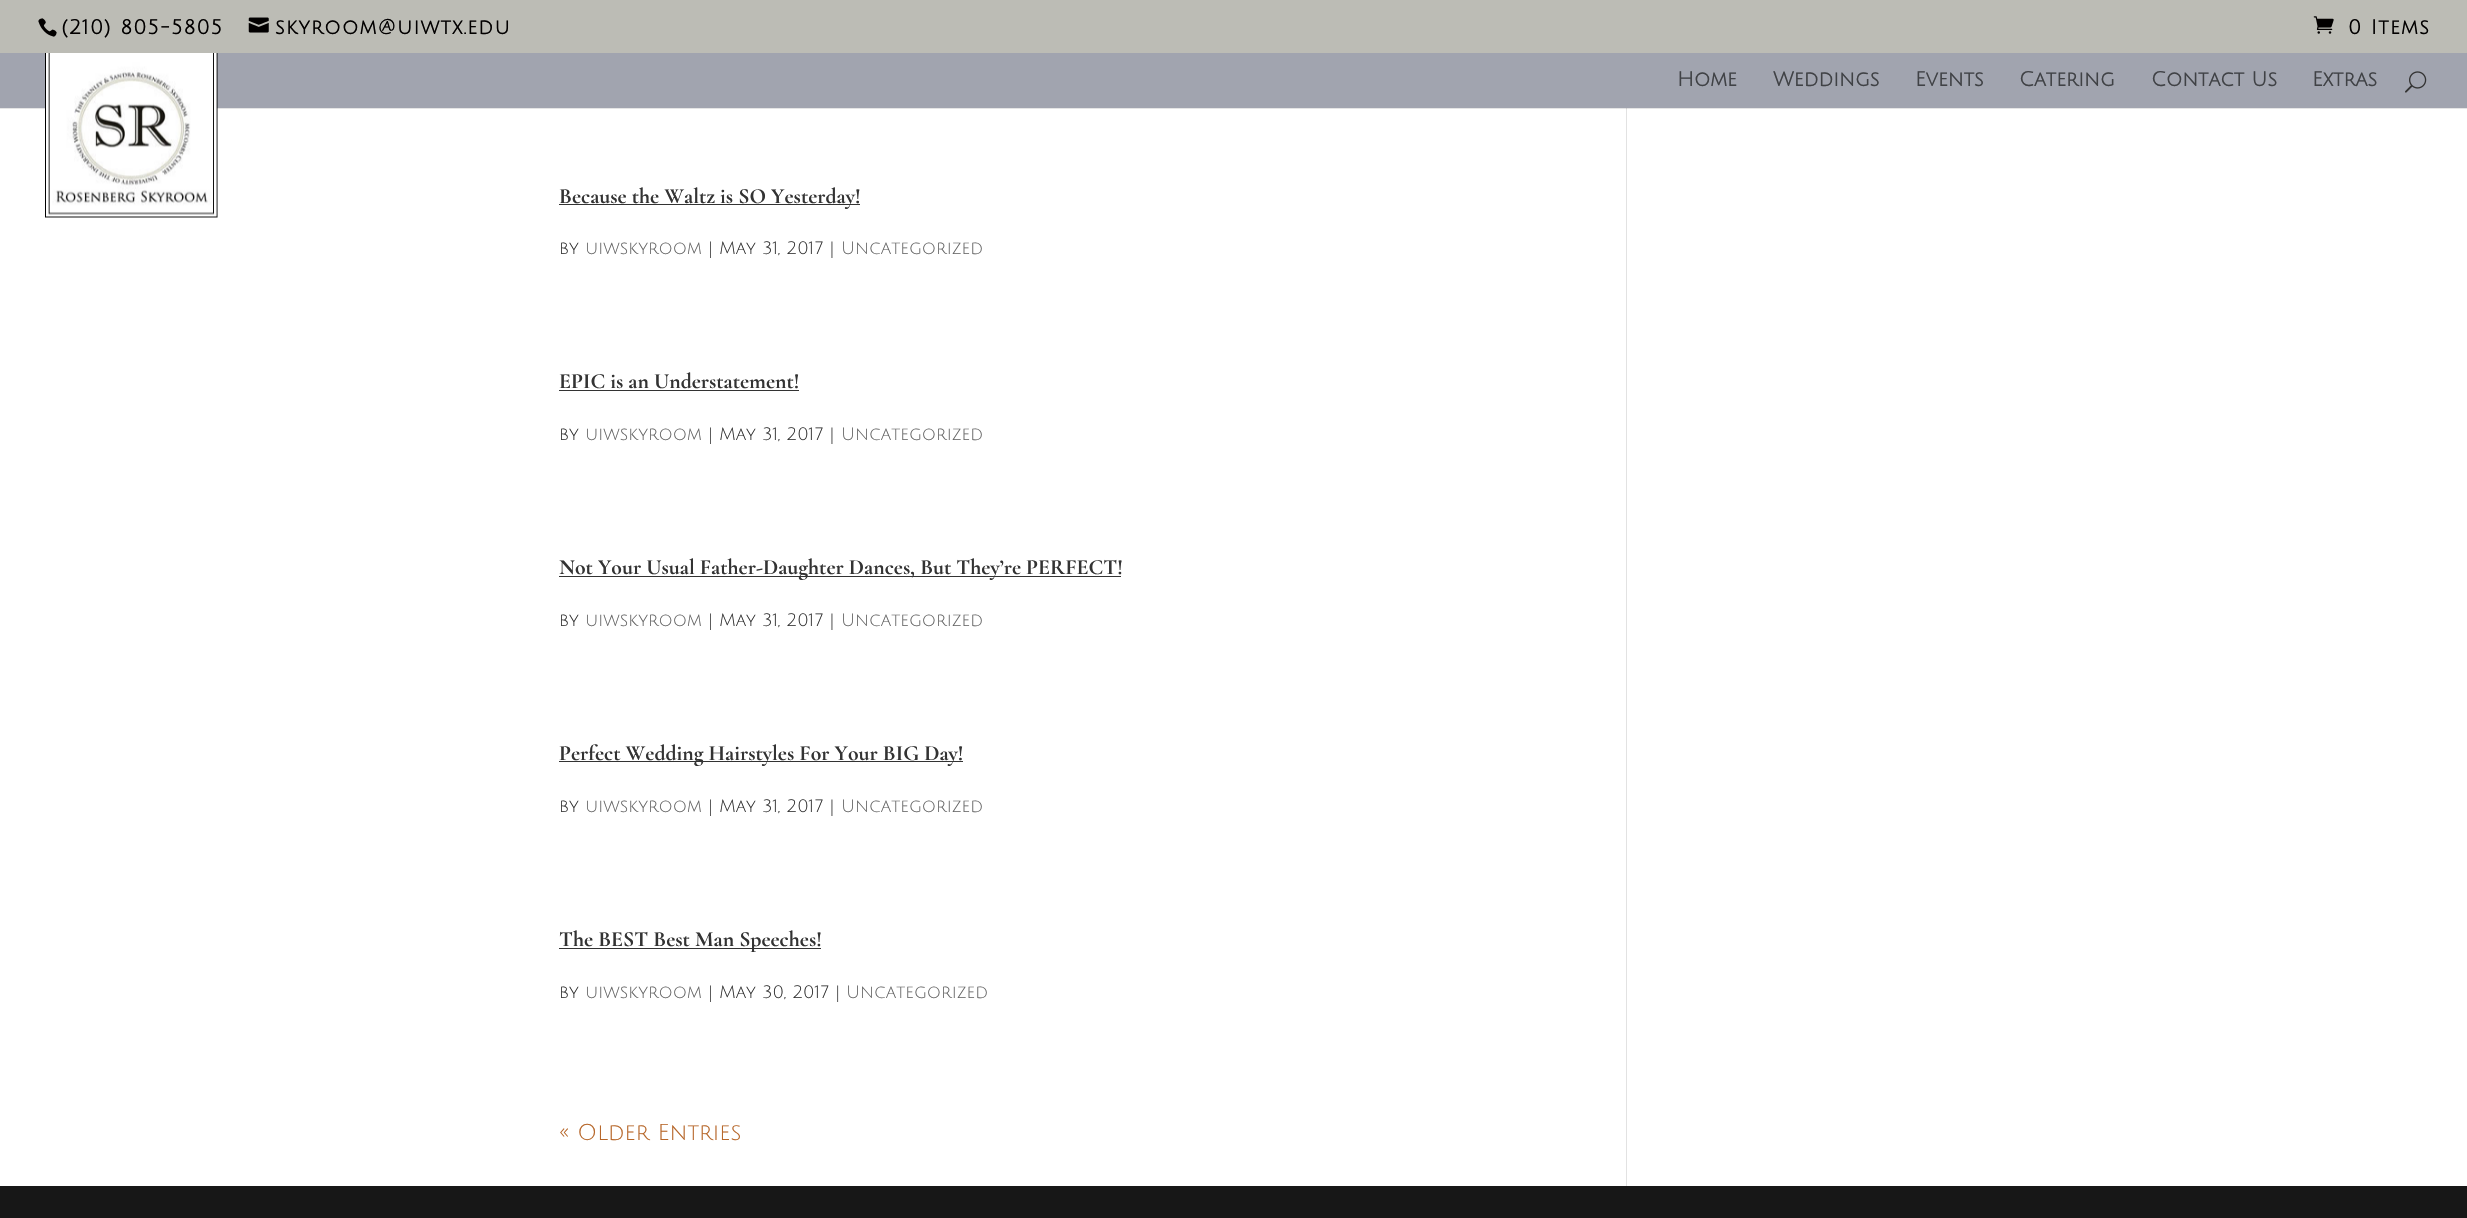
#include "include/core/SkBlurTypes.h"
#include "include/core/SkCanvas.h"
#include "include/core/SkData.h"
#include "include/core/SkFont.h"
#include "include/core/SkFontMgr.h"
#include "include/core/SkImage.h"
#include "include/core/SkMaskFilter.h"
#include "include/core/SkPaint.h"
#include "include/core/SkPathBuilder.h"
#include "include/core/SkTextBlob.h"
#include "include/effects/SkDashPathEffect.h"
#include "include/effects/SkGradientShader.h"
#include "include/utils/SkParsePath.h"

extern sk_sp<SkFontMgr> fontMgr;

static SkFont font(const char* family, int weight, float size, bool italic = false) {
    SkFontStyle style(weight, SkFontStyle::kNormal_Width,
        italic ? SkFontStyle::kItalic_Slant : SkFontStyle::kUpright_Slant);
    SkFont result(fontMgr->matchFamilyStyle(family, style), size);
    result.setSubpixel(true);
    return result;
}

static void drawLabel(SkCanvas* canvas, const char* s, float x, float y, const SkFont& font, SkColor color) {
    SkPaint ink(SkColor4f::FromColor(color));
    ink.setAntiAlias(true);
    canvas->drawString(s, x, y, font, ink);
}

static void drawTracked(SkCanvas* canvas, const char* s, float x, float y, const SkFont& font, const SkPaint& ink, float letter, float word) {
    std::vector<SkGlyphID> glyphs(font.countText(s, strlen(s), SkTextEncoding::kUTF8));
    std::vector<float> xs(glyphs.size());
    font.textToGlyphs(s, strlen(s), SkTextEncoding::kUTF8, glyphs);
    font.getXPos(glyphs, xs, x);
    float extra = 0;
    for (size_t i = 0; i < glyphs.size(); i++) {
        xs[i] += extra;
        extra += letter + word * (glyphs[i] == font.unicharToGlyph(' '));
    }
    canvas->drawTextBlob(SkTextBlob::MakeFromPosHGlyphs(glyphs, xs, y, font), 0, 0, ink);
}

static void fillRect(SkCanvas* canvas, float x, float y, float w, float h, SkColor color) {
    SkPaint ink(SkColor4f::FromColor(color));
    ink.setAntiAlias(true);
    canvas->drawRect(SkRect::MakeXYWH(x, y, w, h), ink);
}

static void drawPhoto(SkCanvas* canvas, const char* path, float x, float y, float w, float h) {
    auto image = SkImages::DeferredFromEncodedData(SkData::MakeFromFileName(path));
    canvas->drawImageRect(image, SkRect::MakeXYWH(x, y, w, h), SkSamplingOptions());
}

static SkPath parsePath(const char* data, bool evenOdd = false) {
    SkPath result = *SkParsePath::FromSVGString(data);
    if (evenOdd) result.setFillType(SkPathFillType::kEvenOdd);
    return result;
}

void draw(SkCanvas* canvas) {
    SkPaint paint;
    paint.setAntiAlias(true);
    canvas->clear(0xFFFFFFFF);
    fillRect(canvas, 0, 0, 2467, 53, 0xFFBCBCB5);
    drawPhoto(canvas, "assets/img1.png", 38, 18, 19, 19);
    SkFont font1 = font("Julius Sans One", 700, 20);
    paint.setColor(0xFF020000);
    drawTracked(canvas, "(210) 805-5805", 61, 34, font1, paint, 1.25f, 0);
    drawPhoto(canvas, "assets/img2.png", 248, 17, 21, 16);
    drawTracked(canvas, "skyroom@uiwtx.edu", 275, 34, font1, paint, 1.25f, 0);
    drawPhoto(canvas, "assets/img3.png", 2313, 16, 21, 18);
    drawTracked(canvas, "0 Items", 2348, 34, font1, paint, 1.25f, 0);
    fillRect(canvas, 1626, 108, 1, 1078, 0xFFE2E2E2);
    paint.setColor(0x1A000000);
    canvas->drawPath(parsePath("M0 108V109H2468V54V108Z"), paint);
    fillRect(canvas, 0, 53, 2467, 55, 0xFFA1A4AF);
    drawPhoto(canvas, "assets/img4.png", 45, 53, 173, 165);
    drawLabel(canvas, "Home", 1677, 86, font1, 0xFF404246);
    drawLabel(canvas, "Weddings", 1773, 86, font1, 0xFF404246);
    drawLabel(canvas, "Events", 1915, 86, font1, 0xFF404246);
    drawLabel(canvas, "Catering", 2019, 86, font1, 0xFF404246);
    drawLabel(canvas, "Contact Us", 2151, 86, font1, 0xFF404246);
    drawLabel(canvas, "Extras", 2312, 86, font1, 0xFF404246);
    drawPhoto(canvas, "assets/img5.png", 2405, 71, 22, 22);
    fillRect(canvas, 559, 204, 301, 1, 0xFF333333);
    SkFont font2 = font("Cormorant Garamond", 700, 21.7f);
    drawLabel(canvas, "Because the Waltz is SO Yesterday!", 559, 203, font2, 0xFF333333);
    SkFont font3 = font("Julius Sans One", 400, 17.5f);
    drawLabel(canvas, "by", 559, 254, font3, 0xFF333333);
    drawLabel(canvas, "uiwskyroom", 585, 254, font3, 0xFF666666);
    drawLabel(canvas, "| May 31, 2017 |", 708, 254, font3, 0xFF333333);
    drawLabel(canvas, "Uncategorized", 841, 254, font3, 0xFF666666);
    drawLabel(canvas, "EPIC is an Understatement!", 559, 388, font2, 0xFF333333);
    fillRect(canvas, 559, 390, 240, 1, 0xFF333333);
    drawLabel(canvas, "by", 559, 440, font3, 0xFF333333);
    drawLabel(canvas, "uiwskyroom", 585, 440, font3, 0xFF666666);
    drawLabel(canvas, "| May 31, 2017 |", 708, 440, font3, 0xFF333333);
    drawLabel(canvas, "Uncategorized", 841, 440, font3, 0xFF666666);
    fillRect(canvas, 559, 576, 562, 1, 0xFF333333);
    drawLabel(canvas, "Not Your Usual Father-Daughter Dances, But They’re PERFECT!", 559, 574, font2, 0xFF333333);
    drawLabel(canvas, "by", 559, 626, font3, 0xFF333333);
    drawLabel(canvas, "uiwskyroom", 585, 626, font3, 0xFF666666);
    drawLabel(canvas, "| May 31, 2017 |", 708, 626, font3, 0xFF333333);
    drawLabel(canvas, "Uncategorized", 841, 626, font3, 0xFF666666);
    fillRect(canvas, 559, 761, 404, 1, 0xFF333333);
    drawLabel(canvas, "Perfect Wedding Hairstyles For Your BIG Day!", 559, 760, font2, 0xFF333333);
    drawLabel(canvas, "by", 559, 812, font3, 0xFF333333);
    drawLabel(canvas, "uiwskyroom", 585, 812, font3, 0xFF666666);
    drawLabel(canvas, "| May 31, 2017 |", 708, 812, font3, 0xFF333333);
    drawLabel(canvas, "Uncategorized", 841, 812, font3, 0xFF666666);
    fillRect(canvas, 559, 948, 262, 1, 0xFF333333);
    drawLabel(canvas, "The BEST Best Man Speeches!", 559, 946, font2, 0xFF333333);
    drawLabel(canvas, "by", 559, 998, font3, 0xFF333333);
    drawLabel(canvas, "uiwskyroom", 585, 998, font3, 0xFF666666);
    drawLabel(canvas, "| May 30, 2017 |", 708, 998, font3, 0xFF333333);
    drawLabel(canvas, "Uncategorized", 846, 998, font3, 0xFF666666);
    SkFont font4 = font("Julius Sans One", 400, 22.5f);
    drawLabel(canvas, "« Older Entries", 559, 1140, font4, 0xFFB7672A);
    fillRect(canvas, 0, 1186, 2467, 32, 0xFF171717);
}
